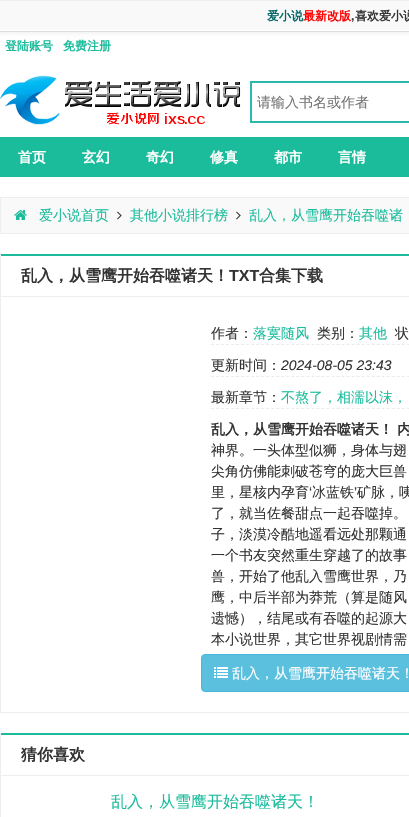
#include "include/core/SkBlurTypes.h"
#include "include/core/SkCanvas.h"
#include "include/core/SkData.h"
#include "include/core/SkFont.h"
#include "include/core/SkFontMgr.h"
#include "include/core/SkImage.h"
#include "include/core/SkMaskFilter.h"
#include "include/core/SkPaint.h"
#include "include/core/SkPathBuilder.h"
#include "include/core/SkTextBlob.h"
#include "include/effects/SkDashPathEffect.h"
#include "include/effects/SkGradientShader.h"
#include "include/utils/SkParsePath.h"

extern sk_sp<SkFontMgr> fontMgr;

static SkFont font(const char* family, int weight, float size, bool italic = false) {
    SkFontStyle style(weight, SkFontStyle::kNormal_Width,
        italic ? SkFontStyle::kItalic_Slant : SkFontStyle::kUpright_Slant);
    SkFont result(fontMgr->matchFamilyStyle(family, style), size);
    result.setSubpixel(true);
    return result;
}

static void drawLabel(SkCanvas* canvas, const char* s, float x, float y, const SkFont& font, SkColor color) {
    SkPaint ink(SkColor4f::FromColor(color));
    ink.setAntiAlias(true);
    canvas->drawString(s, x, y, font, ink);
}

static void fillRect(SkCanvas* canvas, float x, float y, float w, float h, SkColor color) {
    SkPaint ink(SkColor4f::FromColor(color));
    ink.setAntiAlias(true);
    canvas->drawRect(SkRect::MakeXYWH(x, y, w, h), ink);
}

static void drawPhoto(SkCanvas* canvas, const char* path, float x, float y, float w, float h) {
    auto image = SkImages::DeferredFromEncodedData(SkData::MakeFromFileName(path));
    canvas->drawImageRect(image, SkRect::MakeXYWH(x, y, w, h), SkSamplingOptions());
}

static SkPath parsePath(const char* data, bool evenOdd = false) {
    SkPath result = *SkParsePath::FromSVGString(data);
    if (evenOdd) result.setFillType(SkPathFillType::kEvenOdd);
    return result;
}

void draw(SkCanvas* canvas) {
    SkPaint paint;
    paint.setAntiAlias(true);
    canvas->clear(0xFFFFFFFF);
    paint.setColor(0xFFEEEEEE);
    paint.setMaskFilter(SkMaskFilter::MakeBlur(kNormal_SkBlurStyle, 2.5f));
    canvas->drawRect(SkRect::MakeXYWH(-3, -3, 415, 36), paint);
    paint.setMaskFilter(nullptr);
    paint.setStroke(true);
    paint.setStrokeWidth(2);
    paint.setColor(0xFFDDDDDD);
    canvas->drawRect(SkRect::MakeXYWH(-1, -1, 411, 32), paint);
    paint.setStrokeWidth(1);
    paint.setColor(0xFFFFFFFF);
    canvas->drawRect(SkRect::MakeXYWH(-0.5f, -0.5f, 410, 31), paint);
    fillRect(canvas, 0, 1, 409, 29, 0xFFF9F9F9);
    SkFont font1 = font("WenQuanYi Zen Hei", 700, 12);
    drawLabel(canvas, "爱小说", 267, 20, font1, 0xFF006666);
    drawLabel(canvas, "最新改版", 303, 20, font1, 0xFFFF0000);
    SkFont font2 = font("Liberation Sans", 700, 12);
    drawLabel(canvas, ",", 351, 20, font2, 0xFF333333);
    drawLabel(canvas, "喜欢爱小说", 355, 20, font1, 0xFF333333);
    drawLabel(canvas, "登陆账号", 5, 50, font1, 0xFF1ABC9C);
    drawLabel(canvas, "免费注册", 63, 50, font1, 0xFF1ABC9C);
    drawPhoto(canvas, "assets/img1.png", 0, 75, 241, 50);
    fillRect(canvas, 250, 81, 159, 2, 0xFF2DB8AD);
    fillRect(canvas, 250, 121, 159, 2, 0xFF2DB8AD);
    fillRect(canvas, 250, 81, 2, 42, 0xFF2DB8AD);
    SkFont font3 = font("WenQuanYi Zen Hei", 500, 14);
    drawLabel(canvas, "请输入书名或作者", 257, 107, font3, 0xFF757575);
    fillRect(canvas, 0, 137, 409, 40, 0xFF1ABC9C);
    SkFont font4 = font("WenQuanYi Zen Hei", 700, 14);
    drawLabel(canvas, "首页", 18, 162, font4, 0xFFFFFFFF);
    drawLabel(canvas, "玄幻", 82, 162, font4, 0xFFFFFFFF);
    drawLabel(canvas, "奇幻", 146, 162, font4, 0xFFFFFFFF);
    drawLabel(canvas, "修真", 210, 162, font4, 0xFFFFFFFF);
    drawLabel(canvas, "都市", 274, 162, font4, 0xFFFFFFFF);
    drawLabel(canvas, "言情", 338, 162, font4, 0xFFFFFFFF);
    paint.setStroke(false);
    paint.setColor(0xFFF9F9F9);
    canvas->drawRect(SkRect::MakeXYWH(0.5f, 197.5f, 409, 36), paint);
    paint.setStroke(true);
    paint.setColor(0xFFEEEEEE);
    canvas->drawRect(SkRect::MakeXYWH(0.5f, 197.5f, 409, 36), paint);
    drawPhoto(canvas, "assets/img2.png", 14, 210, 13, 10);
    drawLabel(canvas, "爱小说首页", 39, 220, font3, 0xFF1ABC9C);
    drawPhoto(canvas, "assets/img3.png", 117, 211, 5, 9);
    drawLabel(canvas, "其他小说排行榜", 130, 220, font3, 0xFF1ABC9C);
    drawPhoto(canvas, "assets/img3.png", 236, 211, 5, 9);
    drawLabel(canvas, "乱入，从雪鹰开始吞噬诸", 249, 220, font3, 0xFF1ABC9C);
    canvas->drawRect(SkRect::MakeXYWH(0.5f, 254.5f, 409, 458), paint);
    fillRect(canvas, 1, 254, 408, 2, 0xFF1ABC9C);
    fillRect(canvas, 1, 296, 408, 1, 0xFFEEEEEE);
    SkFont font5 = font("WenQuanYi Zen Hei", 700, 16);
    drawLabel(canvas, "乱入，从雪鹰开始吞噬诸天！", 21, 281, font5, 0xFF333333);
    SkFont font6 = font("Liberation Sans", 700, 16);
    drawLabel(canvas, "TXT", 229, 281, font6, 0xFF333333);
    drawLabel(canvas, "合集下载", 259, 281, font5, 0xFF333333);
    paint.setColor(0xFFEBEBEA);
    paint.setPathEffect(SkDashPathEffect::Make({{3, 2.02f}}, 0));
    canvas->drawPath(parsePath("M211 344.5H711"), paint);
    paint.setPathEffect(nullptr);
    drawLabel(canvas, "作者：", 211, 338, font3, 0xFF333333);
    drawLabel(canvas, "落寞随风", 253, 338, font3, 0xFF1ABC9C);
    drawLabel(canvas, "类别：", 317, 338, font3, 0xFF333333);
    drawLabel(canvas, "其他", 359, 338, font3, 0xFF1ABC9C);
    drawLabel(canvas, "状", 395, 338, font3, 0xFF333333);
    paint.setPathEffect(SkDashPathEffect::Make({{3, 2.02f}}, 0));
    canvas->drawPath(parsePath("M211 376.5H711"), paint);
    paint.setPathEffect(nullptr);
    drawLabel(canvas, "更新时间：", 211, 370, font3, 0xFF333333);
    SkFont font7 = font("Liberation Sans", 400, 14, true);
    drawLabel(canvas, "2024-08-05 23:43", 281, 370, font7, 0xFF333333);
    paint.setPathEffect(SkDashPathEffect::Make({{3, 2.02f}}, 0));
    canvas->drawPath(parsePath("M211 408.5H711"), paint);
    paint.setPathEffect(nullptr);
    drawLabel(canvas, "最新章节：", 211, 402, font3, 0xFF333333);
    drawLabel(canvas, "不熬了，相濡以沫，", 281, 402, font3, 0xFF1ABC9C);
    drawLabel(canvas, "乱入，从雪鹰开始吞噬诸天！ 内", 211, 434, font4, 0xFF333333);
    drawLabel(canvas, "神界。一头体型似狮，身体与翅", 211, 455, font3, 0xFF333333);
    drawLabel(canvas, "尖角仿佛能刺破苍穹的庞大巨兽", 211, 476, font3, 0xFF333333);
    drawLabel(canvas, "里，星核内孕育", 211, 497, font3, 0xFF333333);
    SkFont font8 = font("Liberation Sans", 400, 14);
    drawLabel(canvas, "‘", 309, 497, font8, 0xFF333333);
    drawLabel(canvas, "冰蓝铁", 312, 497, font3, 0xFF333333);
    drawLabel(canvas, "’", 354, 497, font8, 0xFF333333);
    drawLabel(canvas, "矿脉，咦", 357, 497, font3, 0xFF333333);
    drawLabel(canvas, "了，就当佐餐甜点一起吞噬掉。", 211, 518, font3, 0xFF333333);
    drawLabel(canvas, "子，淡漠冷酷地遥看远处那颗通", 211, 539, font3, 0xFF333333);
    drawLabel(canvas, "一个书友突然重生穿越了的故事", 211, 560, font3, 0xFF333333);
    drawLabel(canvas, "兽，开始了他乱入雪鹰世界，乃", 211, 581, font3, 0xFF333333);
    drawLabel(canvas, "鹰，中后半部为莽荒（算是随风", 211, 602, font3, 0xFF333333);
    drawLabel(canvas, "遗憾），结尾或有吞噬的起源大", 211, 623, font3, 0xFF333333);
    drawLabel(canvas, "本小说世界，其它世界视剧情需", 211, 644, font3, 0xFF333333);
    paint.setStroke(false);
    paint.setColor(0xFF5BC0DE);
    canvas->drawRoundRect(SkRect::MakeXYWH(201.5f, 654.5f, 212, 37), 3.5f, 3.5f, paint);
    paint.setStroke(true);
    paint.setColor(0xFF46B8DA);
    canvas->drawRoundRect(SkRect::MakeXYWH(201.5f, 654.5f, 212, 37), 3.5f, 3.5f, paint);
    drawPhoto(canvas, "assets/img4.png", 214, 667, 14, 11);
    drawLabel(canvas, "乱入，从雪鹰开始吞噬诸天！", 232, 678, font3, 0xFFFFFFFF);
    paint.setColor(0xFFEEEEEE);
    canvas->drawRect(SkRect::MakeXYWH(0.5f, 733.5f, 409, 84), paint);
    fillRect(canvas, 1, 733, 408, 2, 0xFF1ABC9C);
    fillRect(canvas, 1, 775, 408, 1, 0xFFEEEEEE);
    drawLabel(canvas, "猜你喜欢", 21, 760, font5, 0xFF333333);
    SkFont font9 = font("WenQuanYi Zen Hei", 500, 16);
    drawLabel(canvas, "乱入，从雪鹰开始吞噬诸天！", 111, 807, font9, 0xFF1ABC9C);
}
